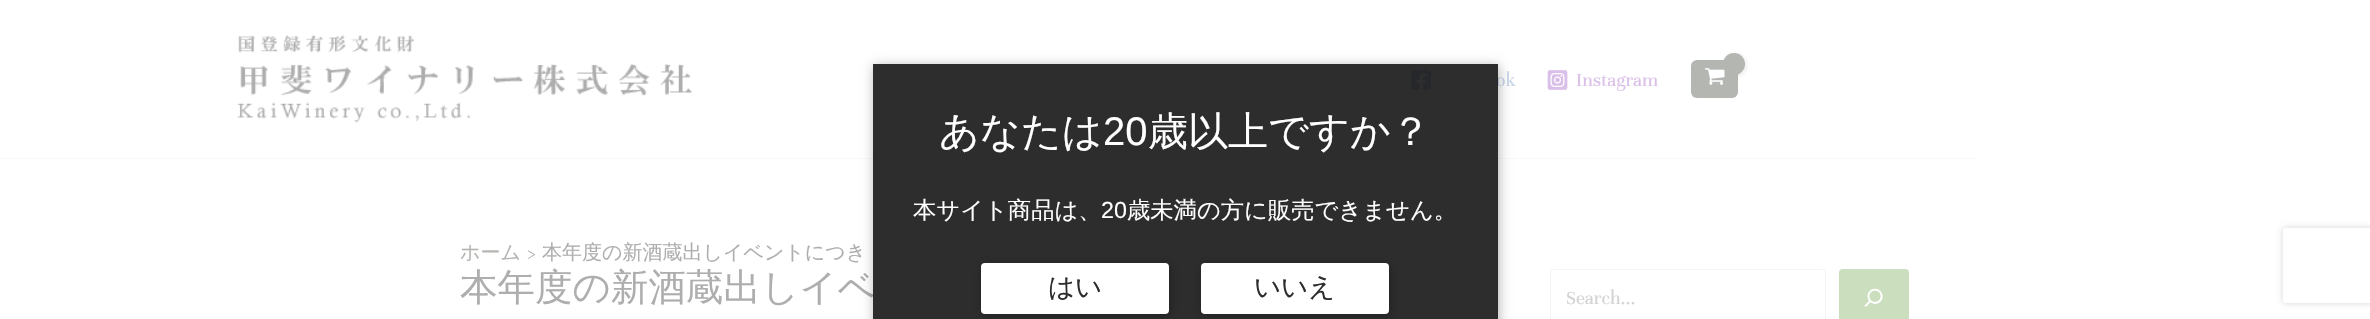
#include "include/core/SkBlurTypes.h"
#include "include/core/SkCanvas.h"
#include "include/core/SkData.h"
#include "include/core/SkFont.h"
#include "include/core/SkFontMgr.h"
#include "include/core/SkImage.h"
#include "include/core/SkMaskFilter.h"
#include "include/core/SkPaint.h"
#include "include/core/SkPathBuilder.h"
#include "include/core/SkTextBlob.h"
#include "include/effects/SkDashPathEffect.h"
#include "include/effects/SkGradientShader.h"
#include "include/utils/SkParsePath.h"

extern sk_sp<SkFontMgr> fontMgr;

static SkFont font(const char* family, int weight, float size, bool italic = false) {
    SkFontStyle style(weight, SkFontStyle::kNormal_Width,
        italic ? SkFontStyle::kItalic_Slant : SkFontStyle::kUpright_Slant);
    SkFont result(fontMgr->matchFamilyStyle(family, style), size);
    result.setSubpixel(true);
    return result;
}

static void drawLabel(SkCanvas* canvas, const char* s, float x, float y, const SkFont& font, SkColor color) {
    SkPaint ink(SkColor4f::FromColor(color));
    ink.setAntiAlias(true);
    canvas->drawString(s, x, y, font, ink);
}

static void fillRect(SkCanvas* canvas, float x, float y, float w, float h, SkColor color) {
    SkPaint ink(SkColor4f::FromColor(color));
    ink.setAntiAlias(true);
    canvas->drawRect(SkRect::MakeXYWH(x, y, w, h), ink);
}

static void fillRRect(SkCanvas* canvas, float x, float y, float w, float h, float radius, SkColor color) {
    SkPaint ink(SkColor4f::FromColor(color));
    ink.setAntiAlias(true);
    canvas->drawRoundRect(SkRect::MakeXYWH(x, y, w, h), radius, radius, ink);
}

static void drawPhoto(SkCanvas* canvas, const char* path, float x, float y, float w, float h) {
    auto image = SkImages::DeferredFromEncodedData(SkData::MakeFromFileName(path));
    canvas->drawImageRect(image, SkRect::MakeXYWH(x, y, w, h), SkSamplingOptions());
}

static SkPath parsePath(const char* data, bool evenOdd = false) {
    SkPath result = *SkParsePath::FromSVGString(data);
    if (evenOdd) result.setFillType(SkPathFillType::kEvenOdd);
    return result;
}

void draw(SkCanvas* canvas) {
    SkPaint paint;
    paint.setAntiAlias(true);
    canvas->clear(0xFFFFFFFF);
    fillRect(canvas, 0, 158, 1975, 1, 0xFFF8F8F8);
    drawPhoto(canvas, "assets/img1.png", 237, 35, 456, 88);
    drawPhoto(canvas, "assets/img2.png", 1411, 70, 21, 20);
    SkFont font1 = font("Unna", 400, 20);
    drawLabel(canvas, "ok", 1496, 86, font1, 0xFFC9D5EA);
    drawPhoto(canvas, "assets/img3.png", 1547, 70, 21, 20);
    drawLabel(canvas, "Instagram", 1576, 86, font1, 0xFFDAC0E9);
    fillRRect(canvas, 1691, 60, 47, 38, 6, 0xFFB4B6B2);
    drawPhoto(canvas, "assets/img4.png", 1704, 68, 21, 17);
    paint.setColor(0x4DADADAD);
    paint.setMaskFilter(SkMaskFilter::MakeBlur(kNormal_SkBlurStyle, 2));
    canvas->drawRoundRect(SkRect::MakeXYWH(1724, 54, 22, 22), 11, 11, paint);
    paint.setMaskFilter(nullptr);
    paint.setColor(0xFFB4B6B2);
    canvas->drawCircle(1734, 64, 11, paint);
    fillRect(canvas, 1474, 239, 1, 80, 0xFFF4F4F4);
    SkFont font2 = font("WenQuanYi Zen Hei", 500, 20);
    drawLabel(canvas, "ホーム", 460, 259, font2, 0xFFB4B6B2);
    drawLabel(canvas, ">", 527, 259, font1, 0xFFAEAEAE);
    drawLabel(canvas, "本年度の新酒蔵出しイベントにつき", 542, 259, font2, 0xFFAEAEAE);
    SkFont font3 = font("WenQuanYi Zen Hei", 500, 37.5f);
    drawLabel(canvas, "本年度の新酒蔵出しイベ", 460, 300, font3, 0xFFAEAEAE);
    paint.setStroke(true);
    paint.setStrokeWidth(1);
    paint.setColor(0xFFF4F4F4);
    canvas->drawRoundRect(SkRect::MakeXYWH(1550.5f, 269.5f, 275, 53), 2, 2, paint);
    drawLabel(canvas, "Search...", 1566, 304, font1, 0xFFD3D3D3);
    fillRRect(canvas, 1839, 269, 70, 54, 4, 0xFFCBDEBE);
    drawPhoto(canvas, "assets/img5.png", 1864, 288, 19, 19);
    canvas->save();
    canvas->clipPath(parsePath("M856 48H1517V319H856ZM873 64H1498V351H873Z", true), true);
    paint.setStroke(false);
    paint.setColor(0x4D000000);
    paint.setMaskFilter(SkMaskFilter::MakeBlur(kNormal_SkBlurStyle, 5.5f));
    canvas->drawRect(SkRect::MakeXYWH(874, 66, 625, 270), paint);
    paint.setMaskFilter(nullptr);
    canvas->restore();
    fillRect(canvas, 873, 64, 625, 255, 0xDB0A0A0A);
    SkFont font4 = font("WenQuanYi Zen Hei", 500, 40);
    drawLabel(canvas, "あなたは", 939, 145, font4, 0xFFFFFFFF);
    SkFont font5 = font("Liberation Sans", 400, 40);
    drawLabel(canvas, "20", 1103, 145, font5, 0xFFFFFFFF);
    drawLabel(canvas, "歳以上ですか？", 1148, 145, font4, 0xFFFFFFFF);
    SkFont font6 = font("WenQuanYi Zen Hei", 500, 23.3f);
    drawLabel(canvas, "本サイト商品は、", 913, 218, font6, 0xFFFFFFFF);
    SkFont font7 = font("Liberation Sans", 400, 23.3f);
    drawLabel(canvas, "20", 1101, 218, font7, 0xFFFFFFFF);
    drawLabel(canvas, "歳未満の方に販売できません。", 1127, 218, font6, 0xFFFFFFFF);
    paint.setMaskFilter(SkMaskFilter::MakeBlur(kNormal_SkBlurStyle, 5.5f));
    canvas->drawRoundRect(SkRect::MakeXYWH(983, 265, 187, 51), 4, 4, paint);
    paint.setMaskFilter(nullptr);
    fillRRect(canvas, 981, 263, 188, 51, 4, 0xFFFFFFFF);
    SkFont font8 = font("WenQuanYi Zen Hei", 500, 26.5f);
    drawLabel(canvas, "はい", 1048, 296, font8, 0xFF2C2C2C);
    paint.setMaskFilter(SkMaskFilter::MakeBlur(kNormal_SkBlurStyle, 5.5f));
    canvas->drawRoundRect(SkRect::MakeXYWH(1203, 265, 187, 51), 4, 4, paint);
    paint.setMaskFilter(nullptr);
    fillRRect(canvas, 1201, 263, 188, 51, 4, 0xFFFFFFFF);
    drawLabel(canvas, "いいえ", 1254, 296, font8, 0xFF2C2C2C);
    canvas->save();
    canvas->clipPath(parsePath("M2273 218H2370V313H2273ZM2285.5 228H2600.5C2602 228 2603 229 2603 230.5V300.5C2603 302 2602 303 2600.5 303H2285.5C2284 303 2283 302 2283 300.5V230.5C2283 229 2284 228 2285.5 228Z", true), true);
    paint.setColor(0xFFD6D6D6);
    paint.setMaskFilter(SkMaskFilter::MakeBlur(kNormal_SkBlurStyle, 3));
    canvas->drawRoundRect(SkRect::MakeXYWH(2283, 228, 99, 75), 2.5f, 2.5f, paint);
    paint.setMaskFilter(nullptr);
    canvas->restore();
}
